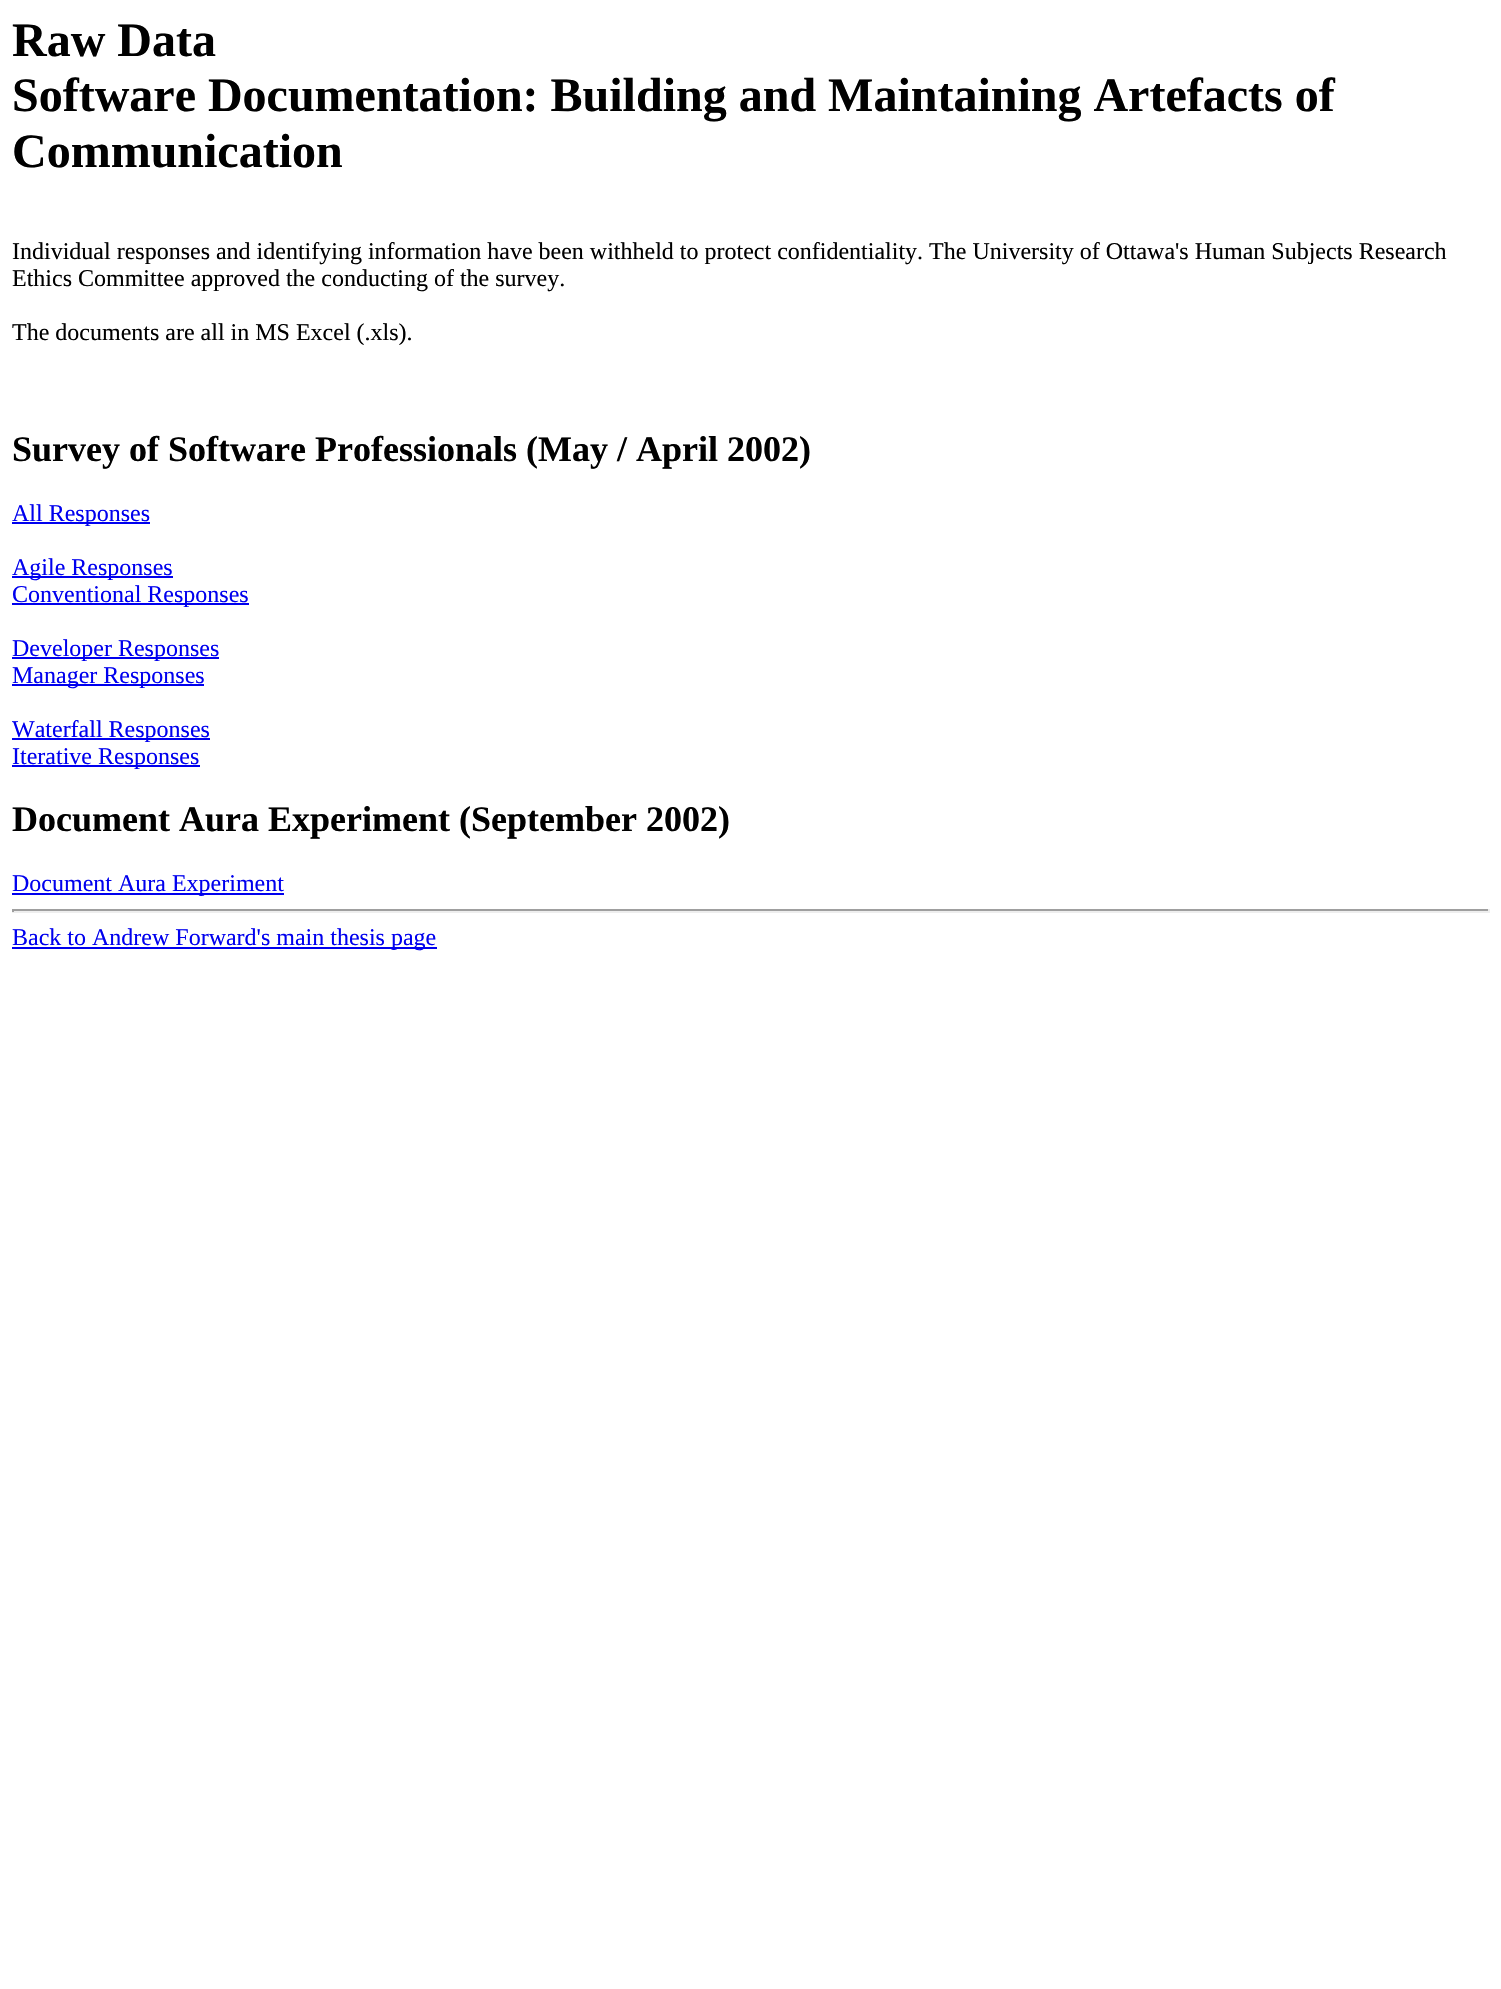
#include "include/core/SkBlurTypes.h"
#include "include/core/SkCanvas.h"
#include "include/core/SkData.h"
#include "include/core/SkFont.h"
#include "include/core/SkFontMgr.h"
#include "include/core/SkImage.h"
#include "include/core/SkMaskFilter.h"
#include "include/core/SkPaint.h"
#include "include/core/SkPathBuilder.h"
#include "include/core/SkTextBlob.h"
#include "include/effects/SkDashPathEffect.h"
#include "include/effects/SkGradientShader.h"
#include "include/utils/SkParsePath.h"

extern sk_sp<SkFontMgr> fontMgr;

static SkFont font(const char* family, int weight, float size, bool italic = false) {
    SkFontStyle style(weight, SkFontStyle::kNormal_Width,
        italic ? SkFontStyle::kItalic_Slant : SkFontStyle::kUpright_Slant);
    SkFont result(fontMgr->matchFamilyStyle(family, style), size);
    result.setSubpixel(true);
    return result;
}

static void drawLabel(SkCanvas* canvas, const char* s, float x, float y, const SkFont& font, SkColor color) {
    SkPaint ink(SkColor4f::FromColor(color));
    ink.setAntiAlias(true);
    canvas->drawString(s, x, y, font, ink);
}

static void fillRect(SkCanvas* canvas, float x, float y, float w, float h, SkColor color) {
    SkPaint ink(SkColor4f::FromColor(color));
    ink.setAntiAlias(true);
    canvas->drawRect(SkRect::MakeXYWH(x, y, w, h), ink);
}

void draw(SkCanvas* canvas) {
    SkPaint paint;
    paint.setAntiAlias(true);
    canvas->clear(0xFFFFFFFF);
    SkFont font1 = font("Liberation Serif", 700, 48);
    drawLabel(canvas, "Raw Data", 12, 56, font1, 0xFF000000);
    drawLabel(canvas, "Software Documentation: Building and Maintaining Artefacts of", 12, 111, font1, 0xFF000000);
    drawLabel(canvas, "Communication", 12, 167, font1, 0xFF000000);
    SkFont font2 = font("Liberation Serif", 400, 24);
    drawLabel(canvas, "Individual responses and identifying information have been withheld to protect confidentiality. The University of Ottawa's Human Subjects Research", 12, 259, font2, 0xFF000000);
    drawLabel(canvas, "Ethics Committee approved the conducting of the survey.", 12, 286, font2, 0xFF000000);
    drawLabel(canvas, "The documents are all in MS Excel (.xls).", 12, 340, font2, 0xFF000000);
    SkFont font3 = font("Liberation Serif", 700, 36);
    drawLabel(canvas, "Survey of Software Professionals (May / April 2002)", 12, 461, font3, 0xFF000000);
    fillRect(canvas, 12, 522, 138, 2, 0xFF0000EE);
    drawLabel(canvas, "All Responses", 12, 521, font2, 0xFF0000EE);
    fillRect(canvas, 12, 576, 161, 2, 0xFF0000EE);
    drawLabel(canvas, "Agile Responses", 12, 575, font2, 0xFF0000EE);
    fillRect(canvas, 12, 603, 237, 2, 0xFF0000EE);
    drawLabel(canvas, "Conventional Responses", 12, 602, font2, 0xFF0000EE);
    fillRect(canvas, 12, 657, 207, 2, 0xFF0000EE);
    drawLabel(canvas, "Developer Responses", 12, 656, font2, 0xFF0000EE);
    fillRect(canvas, 12, 684, 192, 2, 0xFF0000EE);
    drawLabel(canvas, "Manager Responses", 12, 683, font2, 0xFF0000EE);
    fillRect(canvas, 12, 738, 198, 2, 0xFF0000EE);
    drawLabel(canvas, "Waterfall Responses", 12, 737, font2, 0xFF0000EE);
    fillRect(canvas, 12, 765, 188, 2, 0xFF0000EE);
    drawLabel(canvas, "Iterative Responses", 12, 764, font2, 0xFF0000EE);
    drawLabel(canvas, "Document Aura Experiment (September 2002)", 12, 831, font3, 0xFF000000);
    fillRect(canvas, 12, 893, 272, 2, 0xFF0000EE);
    drawLabel(canvas, "Document Aura Experiment", 12, 891, font2, 0xFF0000EE);
    fillRect(canvas, 12, 909, 1478, 2, 0xFF9F9F9F);
    fillRect(canvas, 1488, 909, 2, 3, 0xFFEEEEEE);
    fillRect(canvas, 12, 911, 1478, 2, 0xFFEEEEEE);
    fillRect(canvas, 12, 909, 2, 3, 0xFF9F9F9F);
    fillRect(canvas, 12, 947, 425, 2, 0xFF0000EE);
    drawLabel(canvas, "Back to Andrew Forward's main thesis page", 12, 945, font2, 0xFF0000EE);
}
